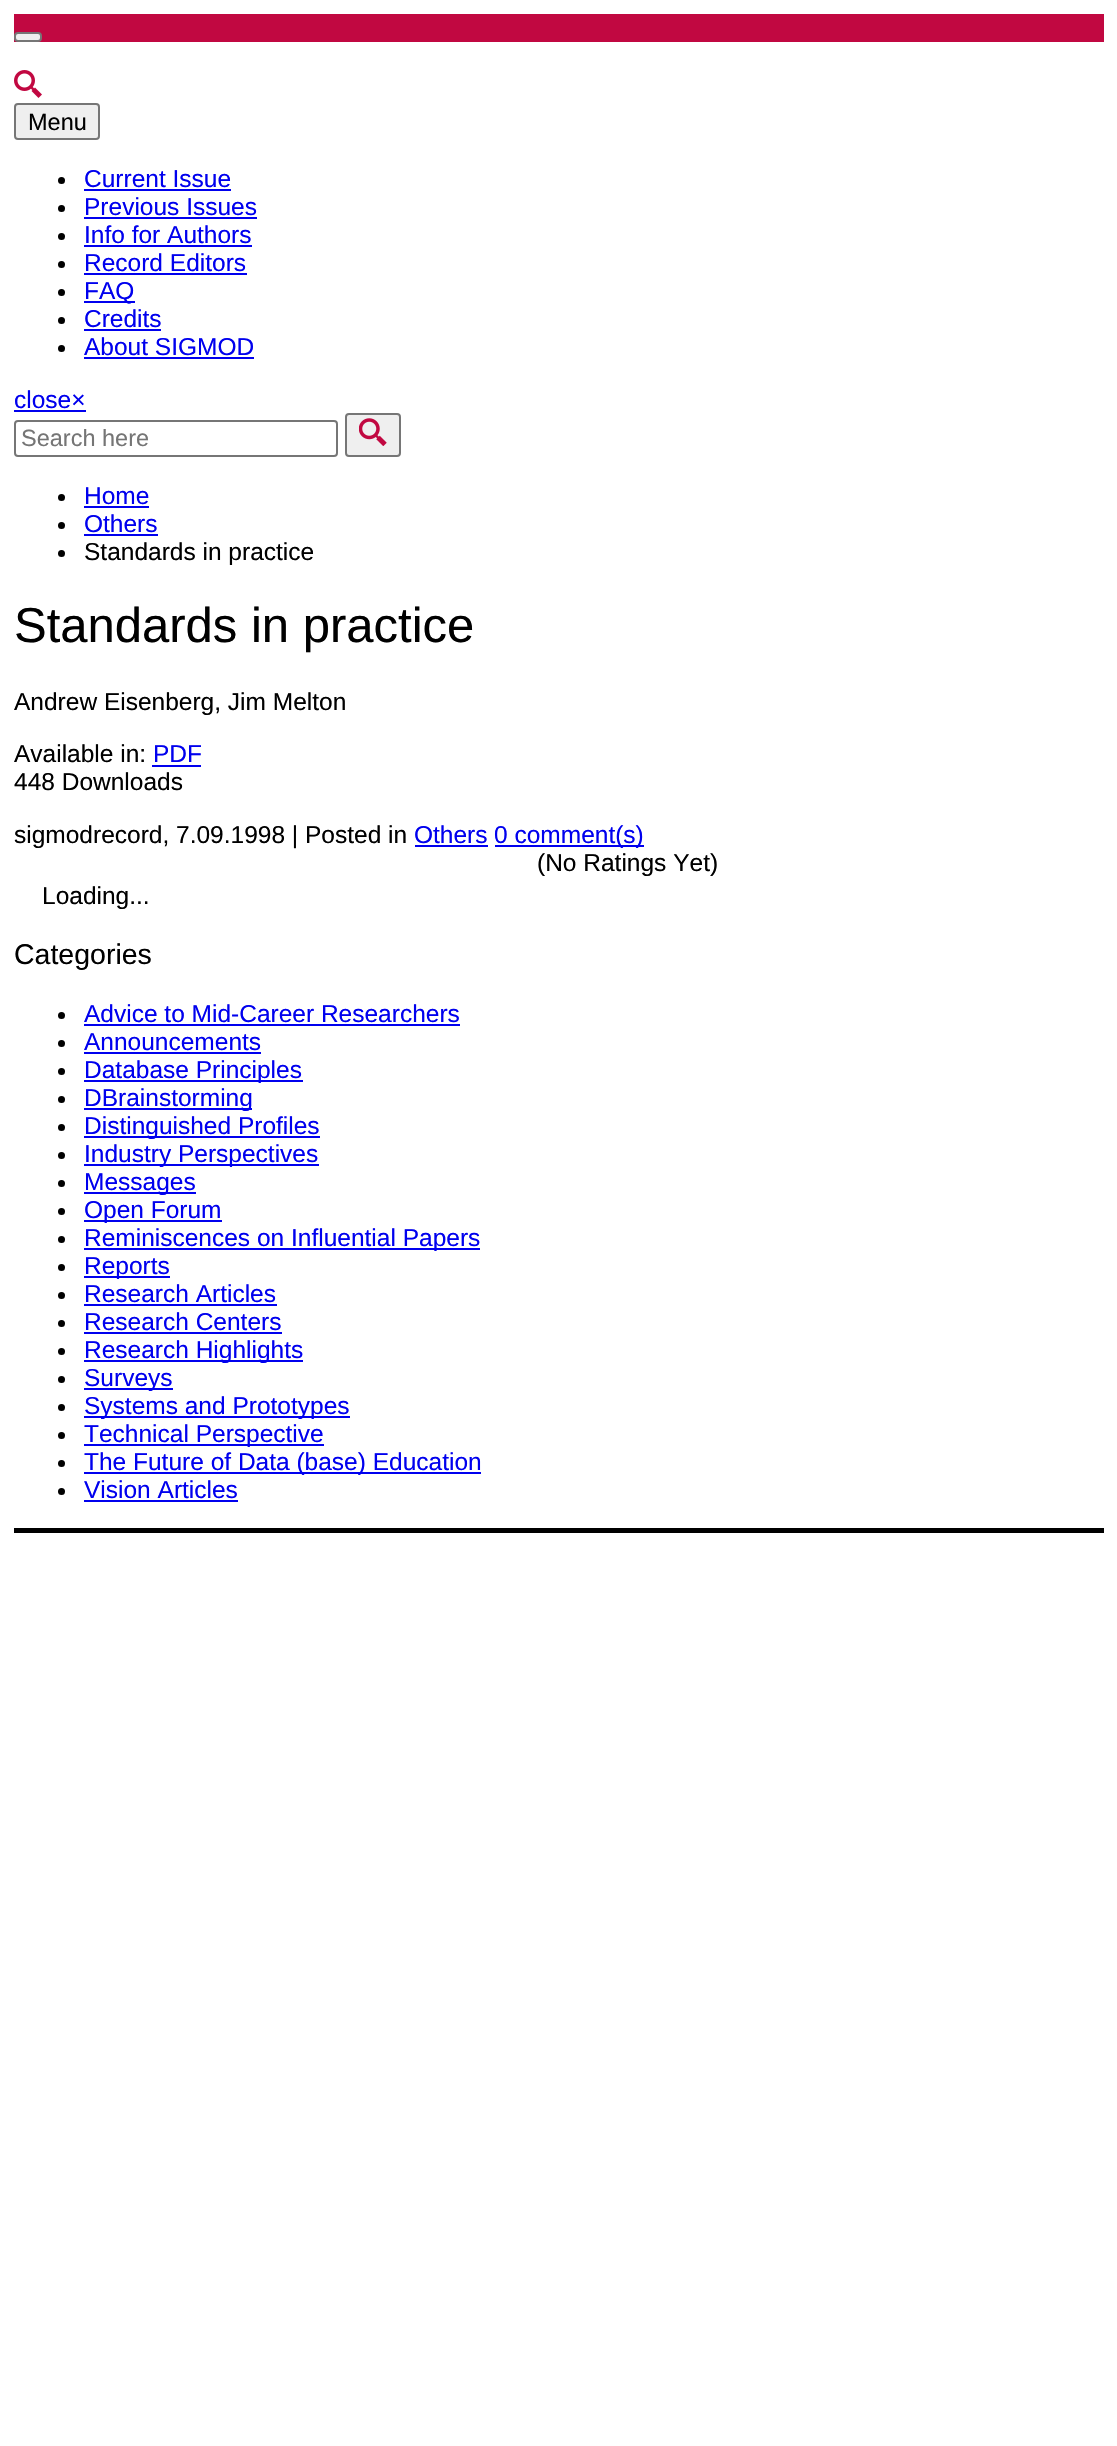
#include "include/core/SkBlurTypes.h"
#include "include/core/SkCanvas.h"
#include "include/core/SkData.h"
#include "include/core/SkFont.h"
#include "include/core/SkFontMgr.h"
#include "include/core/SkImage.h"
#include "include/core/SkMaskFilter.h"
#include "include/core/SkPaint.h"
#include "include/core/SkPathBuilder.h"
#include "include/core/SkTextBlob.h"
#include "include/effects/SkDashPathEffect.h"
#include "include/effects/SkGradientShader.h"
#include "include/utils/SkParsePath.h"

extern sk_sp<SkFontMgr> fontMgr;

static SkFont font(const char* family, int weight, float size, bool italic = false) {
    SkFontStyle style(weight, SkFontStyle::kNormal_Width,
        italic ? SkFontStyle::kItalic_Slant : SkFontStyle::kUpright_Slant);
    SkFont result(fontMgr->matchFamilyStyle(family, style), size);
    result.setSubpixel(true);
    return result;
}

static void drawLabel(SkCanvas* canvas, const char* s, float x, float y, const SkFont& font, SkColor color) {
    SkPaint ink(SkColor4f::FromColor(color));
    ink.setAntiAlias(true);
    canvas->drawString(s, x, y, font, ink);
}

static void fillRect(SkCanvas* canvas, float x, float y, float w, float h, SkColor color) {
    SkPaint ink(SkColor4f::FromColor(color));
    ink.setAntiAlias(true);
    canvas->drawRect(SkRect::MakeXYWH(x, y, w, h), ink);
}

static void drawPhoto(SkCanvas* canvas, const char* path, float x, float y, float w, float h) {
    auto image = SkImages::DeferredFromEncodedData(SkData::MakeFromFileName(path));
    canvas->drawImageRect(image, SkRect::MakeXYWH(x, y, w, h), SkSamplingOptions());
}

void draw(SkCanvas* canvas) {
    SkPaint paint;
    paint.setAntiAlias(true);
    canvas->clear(0xFFFFFFFF);
    fillRect(canvas, 14, 14, 1090, 28, 0xFFC10841);
    paint.setColor(0xFFEFEFEF);
    canvas->drawRoundRect(SkRect::MakeXYWH(15, 33, 26, 8), 3, 3, paint);
    paint.setStroke(true);
    paint.setStrokeWidth(2);
    paint.setColor(0xFF767676);
    canvas->drawRoundRect(SkRect::MakeXYWH(15, 33, 26, 8), 3, 3, paint);
    drawPhoto(canvas, "assets/img1.png", 14, 70, 28, 28);
    paint.setStroke(false);
    paint.setColor(0xFFEFEFEF);
    canvas->drawRoundRect(SkRect::MakeXYWH(15, 104, 84, 35), 3, 3, paint);
    paint.setStroke(true);
    paint.setColor(0xFF767676);
    canvas->drawRoundRect(SkRect::MakeXYWH(15, 104, 84, 35), 3, 3, paint);
    SkFont font1 = font("Liberation Sans", 400, 23.5f);
    drawLabel(canvas, "Menu", 28, 130, font1, 0xFF000000);
    paint.setStroke(false);
    paint.setColor(0xFF000000);
    canvas->drawCircle(61.5f, 180.5f, 3.5f, paint);
    SkFont font2 = font("Arimo", 400, 24.5f);
    drawLabel(canvas, "Current Issue", 84, 187, font2, 0xFF0000EE);
    fillRect(canvas, 84, 189, 147, 2, 0xFF0000EE);
    canvas->drawCircle(61.5f, 208.5f, 3.5f, paint);
    drawLabel(canvas, "Previous Issues", 84, 215, font2, 0xFF0000EE);
    fillRect(canvas, 84, 217, 173, 2, 0xFF0000EE);
    canvas->drawCircle(61.5f, 236.5f, 3.5f, paint);
    drawLabel(canvas, "Info for Authors", 84, 243, font2, 0xFF0000EE);
    fillRect(canvas, 84, 245, 168, 2, 0xFF0000EE);
    canvas->drawCircle(61.5f, 264.5f, 3.5f, paint);
    drawLabel(canvas, "Record Editors", 84, 271, font2, 0xFF0000EE);
    fillRect(canvas, 84, 273, 163, 2, 0xFF0000EE);
    canvas->drawCircle(61.5f, 292.5f, 3.5f, paint);
    fillRect(canvas, 84, 301, 51, 2, 0xFF0000EE);
    drawLabel(canvas, "FAQ", 84, 299, font2, 0xFF0000EE);
    canvas->drawCircle(61.5f, 320.5f, 3.5f, paint);
    drawLabel(canvas, "Credits", 84, 327, font2, 0xFF0000EE);
    fillRect(canvas, 84, 329, 77, 2, 0xFF0000EE);
    canvas->drawCircle(61.5f, 348.5f, 3.5f, paint);
    drawLabel(canvas, "About SIGMOD", 84, 355, font2, 0xFF0000EE);
    fillRect(canvas, 84, 357, 170, 2, 0xFF0000EE);
    drawLabel(canvas, "close×", 14, 408, font2, 0xFF0000EE);
    fillRect(canvas, 14, 410, 72, 2, 0xFF0000EE);
    paint.setStroke(true);
    paint.setColor(0xFF767676);
    canvas->drawRoundRect(SkRect::MakeXYWH(15, 421, 322, 35), 3, 3, paint);
    drawLabel(canvas, "Search here", 21, 446, font1, 0xFF757575);
    paint.setStroke(false);
    paint.setColor(0xFFEFEFEF);
    canvas->drawRoundRect(SkRect::MakeXYWH(346, 414, 54, 42), 3, 3, paint);
    paint.setStroke(true);
    paint.setColor(0xFF767676);
    canvas->drawRoundRect(SkRect::MakeXYWH(346, 414, 54, 42), 3, 3, paint);
    drawPhoto(canvas, "assets/img2.png", 359, 418, 28, 28);
    paint.setStroke(false);
    paint.setColor(0xFF000000);
    canvas->drawCircle(61.5f, 497.5f, 3.5f, paint);
    drawLabel(canvas, "Home", 84, 504, font2, 0xFF0000EE);
    fillRect(canvas, 84, 506, 65, 2, 0xFF0000EE);
    canvas->drawCircle(61.5f, 525.5f, 3.5f, paint);
    drawLabel(canvas, "Others", 84, 532, font2, 0xFF0000EE);
    fillRect(canvas, 84, 534, 74, 2, 0xFF0000EE);
    canvas->drawCircle(61.5f, 553.5f, 3.5f, paint);
    drawLabel(canvas, "Standards in practice", 84, 560, font2, 0xFF000000);
    SkFont font3 = font("Arimo", 400, 49);
    drawLabel(canvas, "Standards in practice", 14, 642, font3, 0xFF000000);
    drawLabel(canvas, "Andrew Eisenberg, Jim Melton", 14, 710, font2, 0xFF000000);
    drawLabel(canvas, "Available in:", 14, 762, font2, 0xFF000000);
    drawLabel(canvas, "PDF", 153, 762, font2, 0xFF0000EE);
    fillRect(canvas, 152, 765, 49, 2, 0xFF0000EE);
    drawLabel(canvas, "448 Downloads", 14, 790, font2, 0xFF000000);
    drawLabel(canvas, "sigmodrecord, 7.09.1998 | Posted in", 14, 843, font2, 0xFF000000);
    drawLabel(canvas, "Others", 414, 843, font2, 0xFF0000EE);
    fillRect(canvas, 415, 845, 73, 2, 0xFF0000EE);
    fillRect(canvas, 495, 845, 149, 2, 0xFF0000EE);
    drawLabel(canvas, "0 comment(s)", 494, 843, font2, 0xFF0000EE);
    drawLabel(canvas, "(No Ratings Yet)", 537, 871, font2, 0xFF000000);
    drawLabel(canvas, "Loading...", 42, 904, font2, 0xFF000000);
    SkFont font4 = font("Arimo", 400, 28.5f);
    drawLabel(canvas, "Categories", 14, 964, font4, 0xFF000000);
    canvas->drawCircle(61.5f, 1015.5f, 3.5f, paint);
    drawLabel(canvas, "Advice to Mid-Career Researchers", 84, 1022, font2, 0xFF0000EE);
    fillRect(canvas, 84, 1024, 376, 2, 0xFF0000EE);
    canvas->drawCircle(61.5f, 1043.5f, 3.5f, paint);
    drawLabel(canvas, "Announcements", 84, 1050, font2, 0xFF0000EE);
    fillRect(canvas, 84, 1052, 177, 2, 0xFF0000EE);
    canvas->drawCircle(61.5f, 1071.5f, 3.5f, paint);
    fillRect(canvas, 84, 1080, 219, 2, 0xFF0000EE);
    drawLabel(canvas, "Database Principles", 84, 1078, font2, 0xFF0000EE);
    canvas->drawCircle(61.5f, 1099.5f, 3.5f, paint);
    fillRect(canvas, 84, 1108, 168, 2, 0xFF0000EE);
    drawLabel(canvas, "DBrainstorming", 84, 1106, font2, 0xFF0000EE);
    canvas->drawCircle(61.5f, 1127.5f, 3.5f, paint);
    fillRect(canvas, 84, 1136, 236, 2, 0xFF0000EE);
    drawLabel(canvas, "Distinguished Profiles", 84, 1134, font2, 0xFF0000EE);
    canvas->drawCircle(61.5f, 1155.5f, 3.5f, paint);
    fillRect(canvas, 84, 1164, 235, 2, 0xFF0000EE);
    drawLabel(canvas, "Industry Perspectives", 84, 1162, font2, 0xFF0000EE);
    canvas->drawCircle(61.5f, 1183.5f, 3.5f, paint);
    fillRect(canvas, 84, 1192, 112, 2, 0xFF0000EE);
    drawLabel(canvas, "Messages", 84, 1190, font2, 0xFF0000EE);
    canvas->drawCircle(61.5f, 1211.5f, 3.5f, paint);
    fillRect(canvas, 84, 1220, 138, 2, 0xFF0000EE);
    drawLabel(canvas, "Open Forum", 84, 1218, font2, 0xFF0000EE);
    canvas->drawCircle(61.5f, 1239.5f, 3.5f, paint);
    fillRect(canvas, 84, 1248, 396, 2, 0xFF0000EE);
    drawLabel(canvas, "Reminiscences on Influential Papers", 84, 1246, font2, 0xFF0000EE);
    canvas->drawCircle(61.5f, 1267.5f, 3.5f, paint);
    fillRect(canvas, 84, 1276, 86, 2, 0xFF0000EE);
    drawLabel(canvas, "Reports", 84, 1274, font2, 0xFF0000EE);
    canvas->drawCircle(61.5f, 1295.5f, 3.5f, paint);
    drawLabel(canvas, "Research Articles", 84, 1302, font2, 0xFF0000EE);
    fillRect(canvas, 84, 1304, 193, 2, 0xFF0000EE);
    canvas->drawCircle(61.5f, 1323.5f, 3.5f, paint);
    drawLabel(canvas, "Research Centers", 84, 1330, font2, 0xFF0000EE);
    fillRect(canvas, 84, 1332, 198, 2, 0xFF0000EE);
    canvas->drawCircle(61.5f, 1351.5f, 3.5f, paint);
    fillRect(canvas, 84, 1360, 219, 2, 0xFF0000EE);
    drawLabel(canvas, "Research Highlights", 84, 1358, font2, 0xFF0000EE);
    canvas->drawCircle(61.5f, 1379.5f, 3.5f, paint);
    fillRect(canvas, 84, 1388, 89, 2, 0xFF0000EE);
    drawLabel(canvas, "Surveys", 84, 1386, font2, 0xFF0000EE);
    canvas->drawCircle(61.5f, 1407.5f, 3.5f, paint);
    fillRect(canvas, 84, 1416, 266, 2, 0xFF0000EE);
    drawLabel(canvas, "Systems and Prototypes", 84, 1414, font2, 0xFF0000EE);
    canvas->drawCircle(61.5f, 1435.5f, 3.5f, paint);
    fillRect(canvas, 84, 1444, 240, 2, 0xFF0000EE);
    drawLabel(canvas, "Technical Perspective", 84, 1442, font2, 0xFF0000EE);
    canvas->drawCircle(61.5f, 1463.5f, 3.5f, paint);
    fillRect(canvas, 84, 1472, 397, 2, 0xFF0000EE);
    drawLabel(canvas, "The Future of Data (base) Education", 84, 1470, font2, 0xFF0000EE);
    canvas->drawCircle(61.5f, 1491.5f, 3.5f, paint);
    drawLabel(canvas, "Vision Articles", 84, 1498, font2, 0xFF0000EE);
    fillRect(canvas, 84, 1500, 154, 2, 0xFF0000EE);
    fillRect(canvas, 14, 1528, 1090, 5, 0xFF000000);
}
